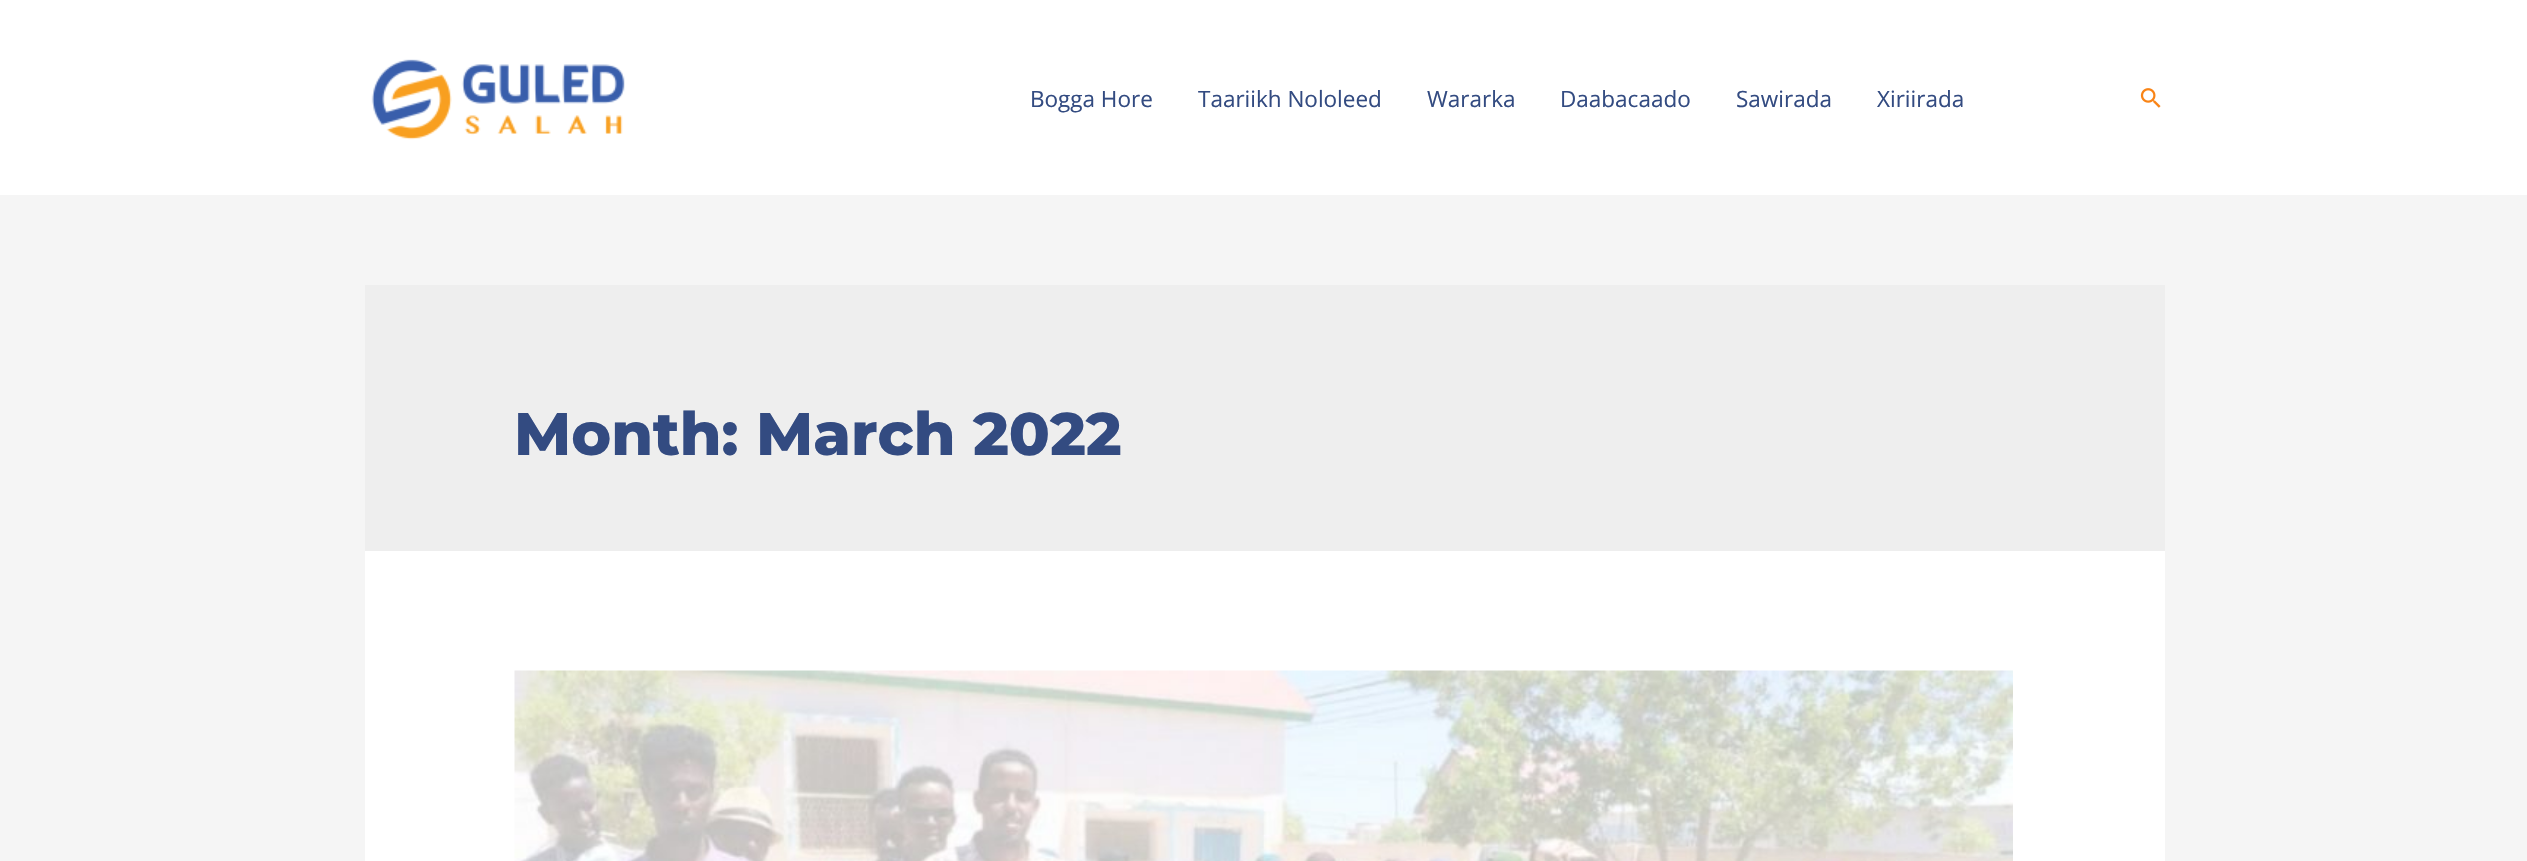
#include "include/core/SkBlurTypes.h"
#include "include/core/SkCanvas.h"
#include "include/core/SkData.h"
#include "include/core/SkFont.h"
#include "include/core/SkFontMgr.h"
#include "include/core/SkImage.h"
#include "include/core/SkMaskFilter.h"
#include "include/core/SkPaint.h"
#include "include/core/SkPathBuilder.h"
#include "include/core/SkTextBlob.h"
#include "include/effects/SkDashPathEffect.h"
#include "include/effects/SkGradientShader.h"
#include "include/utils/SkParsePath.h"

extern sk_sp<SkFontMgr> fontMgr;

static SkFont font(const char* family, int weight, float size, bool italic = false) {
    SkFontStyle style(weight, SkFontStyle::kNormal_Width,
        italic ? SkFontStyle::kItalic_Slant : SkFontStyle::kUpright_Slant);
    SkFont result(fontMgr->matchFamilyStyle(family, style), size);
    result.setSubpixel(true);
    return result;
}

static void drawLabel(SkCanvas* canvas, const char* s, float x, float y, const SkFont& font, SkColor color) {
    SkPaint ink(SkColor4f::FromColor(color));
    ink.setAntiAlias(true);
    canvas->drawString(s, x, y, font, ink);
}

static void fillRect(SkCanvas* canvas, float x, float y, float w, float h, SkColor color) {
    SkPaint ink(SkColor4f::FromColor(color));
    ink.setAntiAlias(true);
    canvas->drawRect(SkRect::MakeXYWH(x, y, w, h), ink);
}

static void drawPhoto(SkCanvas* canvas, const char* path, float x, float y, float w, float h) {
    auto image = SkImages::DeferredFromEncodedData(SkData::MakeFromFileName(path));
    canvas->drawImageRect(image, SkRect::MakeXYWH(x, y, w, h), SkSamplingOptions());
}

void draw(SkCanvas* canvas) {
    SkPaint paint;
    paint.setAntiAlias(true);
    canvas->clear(0xFFF5F5F5);
    fillRect(canvas, 0, 0, 2527, 195, 0xFFFFFFFF);
    drawPhoto(canvas, "assets/img1.png", 371, 59, 254, 81);
    SkFont font1 = font("Open Sans", 400, 22.5f);
    drawLabel(canvas, "Bogga Hore", 1030, 107, font1, 0xFF334B81);
    drawLabel(canvas, "Taariikh Nololeed", 1198, 107, font1, 0xFF334B81);
    drawLabel(canvas, "Wararka", 1427, 107, font1, 0xFF334B81);
    drawLabel(canvas, "Daabacaado", 1560, 107, font1, 0xFF334B81);
    drawLabel(canvas, "Sawirada", 1736, 107, font1, 0xFF334B81);
    drawLabel(canvas, "Xiriirada", 1877, 107, font1, 0xFF334B81);
    drawPhoto(canvas, "assets/img2.png", 2140, 88, 21, 20);
    fillRect(canvas, 365, 285, 1800, 266, 0xFFEEEEEE);
    SkFont font2 = font("Montserrat", 100, 60);
    drawLabel(canvas, "Month: March 2022", 514, 455, font2, 0xFF334B81);
    fillRect(canvas, 365, 551, 1800, 310, 0xFFFFFFFF);
    drawPhoto(canvas, "assets/img3.png", 514, 670, 1499, 191);
}
